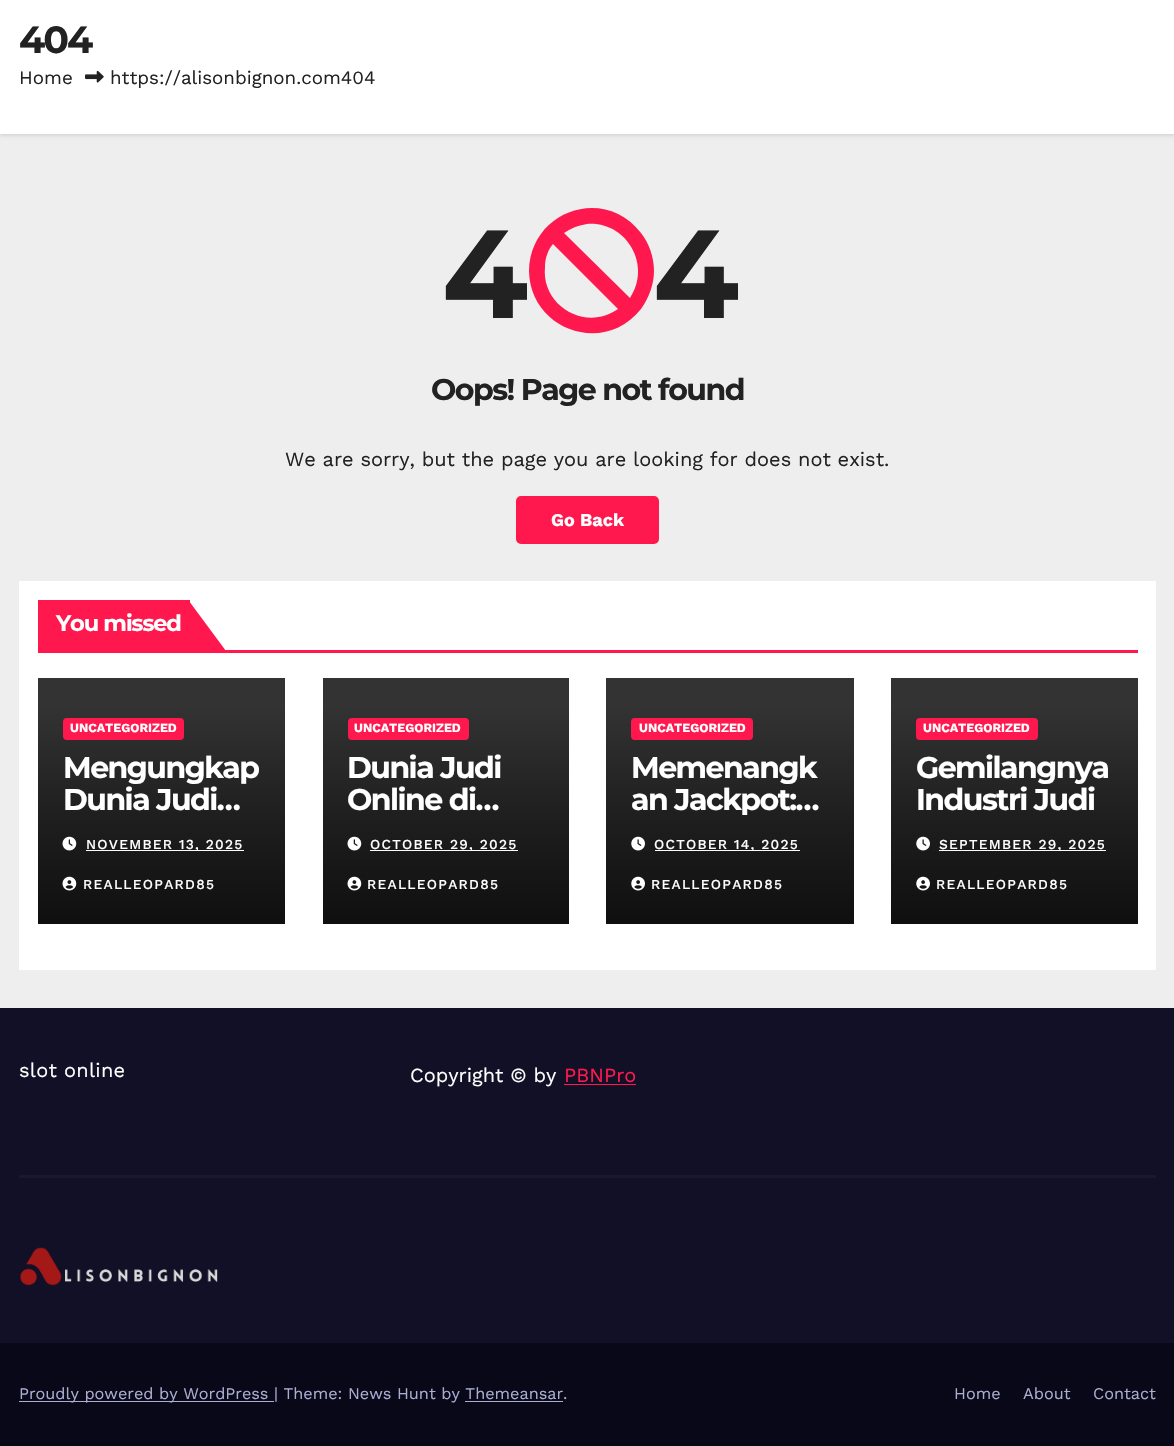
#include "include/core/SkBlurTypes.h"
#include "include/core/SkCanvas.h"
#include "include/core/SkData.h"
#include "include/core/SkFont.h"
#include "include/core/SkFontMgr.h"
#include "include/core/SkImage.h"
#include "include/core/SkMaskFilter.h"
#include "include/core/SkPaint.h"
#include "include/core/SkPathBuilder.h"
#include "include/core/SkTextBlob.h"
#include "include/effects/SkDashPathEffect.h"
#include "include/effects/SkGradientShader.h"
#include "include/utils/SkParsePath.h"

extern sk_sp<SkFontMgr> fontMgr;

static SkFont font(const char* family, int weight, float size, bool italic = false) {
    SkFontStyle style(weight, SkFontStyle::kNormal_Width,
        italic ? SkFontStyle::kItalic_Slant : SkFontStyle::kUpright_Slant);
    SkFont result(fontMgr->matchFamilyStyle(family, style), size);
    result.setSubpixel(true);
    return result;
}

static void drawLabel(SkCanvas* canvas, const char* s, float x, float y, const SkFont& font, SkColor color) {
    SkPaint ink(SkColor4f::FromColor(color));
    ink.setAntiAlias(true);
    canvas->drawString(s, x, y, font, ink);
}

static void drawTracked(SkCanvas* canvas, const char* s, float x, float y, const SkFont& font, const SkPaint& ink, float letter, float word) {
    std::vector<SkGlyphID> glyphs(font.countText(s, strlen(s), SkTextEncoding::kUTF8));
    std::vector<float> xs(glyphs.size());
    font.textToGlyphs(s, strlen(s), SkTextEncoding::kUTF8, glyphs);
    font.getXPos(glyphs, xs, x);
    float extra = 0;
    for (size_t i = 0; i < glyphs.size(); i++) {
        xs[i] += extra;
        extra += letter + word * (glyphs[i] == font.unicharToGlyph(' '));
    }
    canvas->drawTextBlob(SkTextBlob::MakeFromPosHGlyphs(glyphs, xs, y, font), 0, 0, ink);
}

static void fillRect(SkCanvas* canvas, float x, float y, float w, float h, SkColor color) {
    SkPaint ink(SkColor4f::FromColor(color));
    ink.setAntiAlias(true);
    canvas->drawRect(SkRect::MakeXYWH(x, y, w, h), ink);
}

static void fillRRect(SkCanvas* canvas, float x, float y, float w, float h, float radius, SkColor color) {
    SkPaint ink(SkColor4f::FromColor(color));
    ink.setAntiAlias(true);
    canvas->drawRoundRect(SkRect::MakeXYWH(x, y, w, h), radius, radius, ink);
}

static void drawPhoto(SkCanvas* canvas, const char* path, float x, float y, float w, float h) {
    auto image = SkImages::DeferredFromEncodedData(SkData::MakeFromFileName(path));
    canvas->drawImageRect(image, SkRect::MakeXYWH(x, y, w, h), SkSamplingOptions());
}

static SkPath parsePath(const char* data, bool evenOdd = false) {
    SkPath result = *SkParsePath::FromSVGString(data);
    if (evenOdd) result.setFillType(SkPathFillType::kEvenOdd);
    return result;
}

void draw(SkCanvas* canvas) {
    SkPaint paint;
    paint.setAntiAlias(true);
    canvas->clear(0xFFEEEEEE);
    paint.setColor(0x26000000);
    paint.setMaskFilter(SkMaskFilter::MakeBlur(kNormal_SkBlurStyle, 2));
    canvas->drawRect(SkRect::MakeXYWH(0, -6, 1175, 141), paint);
    paint.setMaskFilter(nullptr);
    fillRect(canvas, 0, 0, 1174, 134, 0xFFFFFFFF);
    SkFont font1 = font("Montserrat", 700, 38);
    paint.setColor(0xFF222222);
    drawTracked(canvas, "404", 19, 53, font1, paint, -2, 0);
    SkFont font2 = font("Work Sans", 400, 18.75f);
    drawLabel(canvas, "Home", 19, 84, font2, 0xFF222222);
    drawPhoto(canvas, "assets/img1.png", 85, 70, 19, 13);
    drawLabel(canvas, "https://alisonbignon.com404", 110, 84, font2, 0xFF222222);
    SkFont font3 = font("Montserrat", 700, 125);
    drawTracked(canvas, "4", 442, 318, font3, paint, -6, 0);
    paint.setColor(0xFFFF184E);
    canvas->drawPath(parsePath("M618 309L553 244C548 250 545 258 545 267C541 306 586 332 618 309ZM630 298C652 266 627 221 587 224C579 225 571 228 564 233ZM529 271C530 211 604 185 641 233C649 243 654 257 654 271C654 284 649 298 641 309C604 356 530 330 529 271Z"), paint);
    paint.setColor(0xFF222222);
    drawTracked(canvas, "4", 653, 318, font3, paint, -6, 0);
    SkFont font4 = font("Montserrat", 700, 30);
    drawTracked(canvas, "Oops! Page not found", 431, 400, font4, paint, -1.5f, 0);
    SkFont font5 = font("Work Sans", 400, 20);
    drawLabel(canvas, "We are sorry, but the page you are looking for does not exist.", 285, 466, font5, 0xFF222222);
    paint.setColor(0xFFFF184E);
    canvas->drawRoundRect(SkRect::MakeXYWH(517.5f, 497.5f, 140, 45), 3.5f, 3.5f, paint);
    paint.setStroke(true);
    paint.setStrokeWidth(3);
    canvas->drawRoundRect(SkRect::MakeXYWH(517.5f, 497.5f, 140, 45), 3.5f, 3.5f, paint);
    SkFont font6 = font("Work Sans", 700, 18);
    drawLabel(canvas, "Go Back", 551, 526, font6, 0xFFFFFFFF);
    fillRect(canvas, 19, 581, 1137, 389, 0xFFFFFFFF);
    fillRect(canvas, 38, 650, 1100, 3, 0xFFFF184E);
    fillRect(canvas, 38, 600, 152, 50, 0xFFFF184E);
    SkFont font7 = font("Montserrat", 700, 22.5f);
    paint.setStroke(false);
    paint.setColor(0xFFFFFFFF);
    drawTracked(canvas, "You missed", 56, 631, font7, paint, -1.1f, 0);
    paint.setColor(0xFFFF184E);
    canvas->drawPath(parsePath("M189 601V651H226Z"), paint);
    fillRect(canvas, 38, 678, 247, 27, 0xFF333333);
    {
        const SkColor colors[] = {0xFF333333, 0xFF1F1F1F, 0xFF0F0F0F};
        const float stops[] = {0, 0.5f, 1};
        const SkPoint ends[] = {{161, 705}, {161, 924}};
        paint.setShader(SkGradientShader::MakeLinear(ends, colors, stops, 3, SkTileMode::kClamp));
        paint.setAlpha(255);
    }
    canvas->drawRect(SkRect::MakeXYWH(38, 705, 247, 219), paint);
    fillRRect(canvas, 63, 718, 121, 22, 4, 0xFFFF184E);
    SkFont font8 = font("Work Sans", 700, 12.5f);
    drawLabel(canvas, "UNCATEGORIZED", 70, 732, font8, 0xFFFFFFFF);
    paint.setShader(nullptr);
    paint.setColor(0xFFFFFFFF);
    drawTracked(canvas, "Mengungkap", 63, 778, font4, paint, -1.5f, 0);
    drawTracked(canvas, "Dunia Judi…", 63, 810, font4, paint, -1.5f, 0);
    drawPhoto(canvas, "assets/img2.png", 62, 836, 15, 15);
    fillRect(canvas, 86, 850, 158, 1, 0xFFFFFFFF);
    SkFont font9 = font("Work Sans", 500, 13.75f);
    drawTracked(canvas, "NOVEMBER 13, 2025", 86, 849, font9, paint, 1.25f, 0);
    drawPhoto(canvas, "assets/img3.png", 62, 876, 15, 15);
    drawTracked(canvas, "REALLEOPARD85", 83, 889, font9, paint, 1.25f, 0);
    fillRect(canvas, 323, 678, 246, 27, 0xFF333333);
    {
        const SkColor colors[] = {0xFF333333, 0xFF1F1F1F, 0xFF0F0F0F};
        const float stops[] = {0, 0.5f, 1};
        const SkPoint ends[] = {{446, 705}, {446, 924}};
        paint.setShader(SkGradientShader::MakeLinear(ends, colors, stops, 3, SkTileMode::kClamp));
        paint.setAlpha(255);
    }
    canvas->drawRect(SkRect::MakeXYWH(323, 705, 246, 219), paint);
    fillRRect(canvas, 348, 718, 121, 22, 4, 0xFFFF184E);
    drawLabel(canvas, "UNCATEGORIZED", 354, 732, font8, 0xFFFFFFFF);
    paint.setShader(nullptr);
    paint.setColor(0xFFFFFFFF);
    drawTracked(canvas, "Dunia Judi", 347, 778, font4, paint, -1.5f, 0);
    drawTracked(canvas, "Online di…", 347, 810, font4, paint, -1.5f, 0);
    drawPhoto(canvas, "assets/img2.png", 347, 836, 15, 15);
    fillRect(canvas, 370, 850, 148, 1, 0xFFFFFFFF);
    drawTracked(canvas, "OCTOBER 29, 2025", 370, 849, font9, paint, 1.25f, 0);
    drawPhoto(canvas, "assets/img3.png", 347, 876, 15, 15);
    drawTracked(canvas, "REALLEOPARD85", 367, 889, font9, paint, 1.25f, 0);
    fillRect(canvas, 606, 678, 248, 27, 0xFF333333);
    {
        const SkColor colors[] = {0xFF333333, 0xFF1F1F1F, 0xFF0F0F0F};
        const float stops[] = {0, 0.5f, 1};
        const SkPoint ends[] = {{730, 705}, {730, 924}};
        paint.setShader(SkGradientShader::MakeLinear(ends, colors, stops, 3, SkTileMode::kClamp));
        paint.setAlpha(255);
    }
    canvas->drawRect(SkRect::MakeXYWH(606, 705, 248, 219), paint);
    fillRRect(canvas, 631, 718, 122, 22, 4, 0xFFFF184E);
    drawLabel(canvas, "UNCATEGORIZED", 639, 732, font8, 0xFFFFFFFF);
    paint.setShader(nullptr);
    paint.setColor(0xFFFFFFFF);
    drawTracked(canvas, "Memenangk", 631, 778, font4, paint, -1.5f, 0);
    canvas->save();
    canvas->clipRect(SkRect::MakeXYWH(631, 753, 198, 62));
    drawTracked(canvas, "an Jackpot:…", 631, 810, font4, paint, -1.5f, 0);
    canvas->restore();
    drawPhoto(canvas, "assets/img4.png", 631, 836, 14, 15);
    fillRect(canvas, 655, 850, 145, 1, 0xFFFFFFFF);
    drawTracked(canvas, "OCTOBER 14, 2025", 654, 849, font9, paint, 1.25f, 0);
    drawPhoto(canvas, "assets/img5.png", 631, 876, 14, 15);
    drawTracked(canvas, "REALLEOPARD85", 651, 889, font9, paint, 1.25f, 0);
    fillRect(canvas, 891, 678, 247, 27, 0xFF333333);
    {
        const SkColor colors[] = {0xFF333333, 0xFF1F1F1F, 0xFF0F0F0F};
        const float stops[] = {0, 0.5f, 1};
        const SkPoint ends[] = {{1014, 705}, {1014, 924}};
        paint.setShader(SkGradientShader::MakeLinear(ends, colors, stops, 3, SkTileMode::kClamp));
        paint.setAlpha(255);
    }
    canvas->drawRect(SkRect::MakeXYWH(891, 705, 247, 219), paint);
    fillRRect(canvas, 916, 718, 122, 22, 4, 0xFFFF184E);
    drawLabel(canvas, "UNCATEGORIZED", 923, 732, font8, 0xFFFFFFFF);
    paint.setShader(nullptr);
    paint.setColor(0xFFFFFFFF);
    drawTracked(canvas, "Gemilangnya", 916, 778, font4, paint, -1.5f, 0);
    drawTracked(canvas, "Industri Judi", 916, 810, font4, paint, -1.5f, 0);
    drawPhoto(canvas, "assets/img4.png", 916, 836, 14, 15);
    fillRect(canvas, 939, 850, 167, 1, 0xFFFFFFFF);
    drawTracked(canvas, "SEPTEMBER 29, 2025", 939, 849, font9, paint, 1.25f, 0);
    drawPhoto(canvas, "assets/img5.png", 916, 876, 14, 15);
    drawTracked(canvas, "REALLEOPARD85", 936, 889, font9, paint, 1.25f, 0);
    fillRect(canvas, 0, 1008, 1174, 335, 0xFF121026);
    drawTracked(canvas, "slot online", 19, 1077, font5, paint, 0.25f, 0);
    drawLabel(canvas, "Copyright © by", 410, 1082, font5, 0xFFFFFFFF);
    drawLabel(canvas, "PBNPro", 564, 1082, font5, 0xFFFF184E);
    fillRect(canvas, 564, 1084, 72, 1, 0xFFFF184E);
    fillRect(canvas, 19, 1175, 1137, 3, 0xFF1A182E);
    drawPhoto(canvas, "assets/img6.png", 20, 1247, 198, 39);
    fillRect(canvas, 0, 1343, 1174, 103, 0xFF090818);
    fillRect(canvas, 19, 1401, 255, 1, 0xFFAAAED1);
    SkFont font10 = font("Work Sans", 400, 16.25f);
    drawLabel(canvas, "Proudly powered by WordPress | Theme: News Hunt by Themeansar.", 19, 1399, font10, 0xFFAAAED1);
    fillRect(canvas, 465, 1401, 98, 1, 0xFFAAAED1);
    drawLabel(canvas, "Home", 954, 1399, font10, 0xFFAAAED1);
    drawLabel(canvas, "About", 1023, 1399, font10, 0xFFAAAED1);
    drawLabel(canvas, "Contact", 1093, 1399, font10, 0xFFAAAED1);
}
